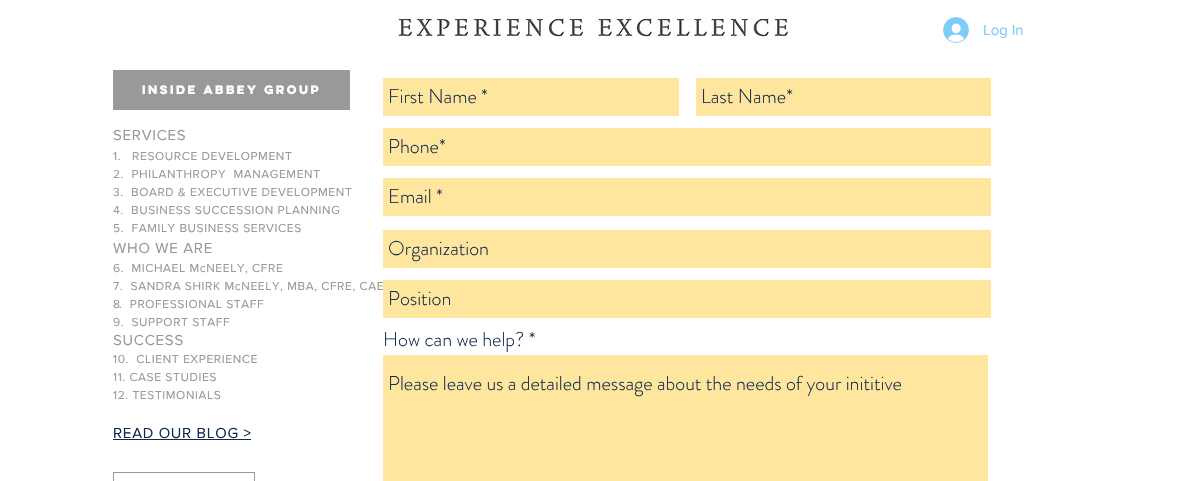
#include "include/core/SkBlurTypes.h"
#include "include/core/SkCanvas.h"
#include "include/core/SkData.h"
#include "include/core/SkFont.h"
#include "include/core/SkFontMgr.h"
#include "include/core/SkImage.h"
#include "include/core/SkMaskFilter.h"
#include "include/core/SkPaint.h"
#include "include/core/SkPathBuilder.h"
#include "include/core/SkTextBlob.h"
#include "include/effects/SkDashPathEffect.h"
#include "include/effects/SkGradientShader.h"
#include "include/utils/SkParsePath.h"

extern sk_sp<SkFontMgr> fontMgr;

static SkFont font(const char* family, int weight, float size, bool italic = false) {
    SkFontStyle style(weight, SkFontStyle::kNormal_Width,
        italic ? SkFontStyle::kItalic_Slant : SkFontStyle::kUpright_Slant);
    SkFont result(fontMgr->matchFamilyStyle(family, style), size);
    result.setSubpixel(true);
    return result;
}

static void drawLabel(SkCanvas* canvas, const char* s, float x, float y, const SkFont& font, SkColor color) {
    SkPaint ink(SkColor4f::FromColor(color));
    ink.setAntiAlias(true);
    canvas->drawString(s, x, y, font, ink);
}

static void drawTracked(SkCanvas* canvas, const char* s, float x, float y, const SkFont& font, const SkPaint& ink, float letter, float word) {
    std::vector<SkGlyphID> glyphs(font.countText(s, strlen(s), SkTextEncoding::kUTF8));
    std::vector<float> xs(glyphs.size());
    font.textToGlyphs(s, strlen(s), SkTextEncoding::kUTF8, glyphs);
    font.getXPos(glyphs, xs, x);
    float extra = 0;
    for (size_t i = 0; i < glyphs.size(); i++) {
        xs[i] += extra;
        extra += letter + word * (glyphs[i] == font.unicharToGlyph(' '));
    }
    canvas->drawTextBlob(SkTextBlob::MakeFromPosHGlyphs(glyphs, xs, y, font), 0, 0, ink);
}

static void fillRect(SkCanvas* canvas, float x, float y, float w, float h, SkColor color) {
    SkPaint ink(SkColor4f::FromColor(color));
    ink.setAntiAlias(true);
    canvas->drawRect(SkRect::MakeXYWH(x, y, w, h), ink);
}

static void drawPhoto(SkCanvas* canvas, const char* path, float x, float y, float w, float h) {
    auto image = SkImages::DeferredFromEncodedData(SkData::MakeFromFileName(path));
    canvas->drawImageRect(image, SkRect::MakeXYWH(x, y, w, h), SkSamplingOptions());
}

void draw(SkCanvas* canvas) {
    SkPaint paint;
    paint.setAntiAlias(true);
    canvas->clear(0xFFFFFFFF);
    drawPhoto(canvas, "assets/img1.png", 396, 18, 392, 20);
    drawPhoto(canvas, "assets/img2.png", 943, 17, 26, 26);
    SkFont font1 = font("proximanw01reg", 400, 15);
    drawLabel(canvas, "Log In", 983, 35, font1, 0xFF7FCCF7);
    fillRect(canvas, 113, 70, 237, 40, 0xFF999997);
    SkFont font2 = font("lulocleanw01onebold", 700, 11);
    drawLabel(canvas, "INSIDE ABBEY GROUP", 142, 94, font2, 0xFFFFFFFF);
    fillRect(canvas, 383, 78, 296, 38, 0xFFFFE69F);
    SkFont font3 = font("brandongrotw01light", 300, 20);
    drawLabel(canvas, "First Name *", 388, 103, font3, 0xFF112A4B);
    fillRect(canvas, 696, 78, 295, 38, 0xFFFFE69F);
    drawLabel(canvas, "Last Name*", 701, 103, font3, 0xFF112A4B);
    fillRect(canvas, 383, 128, 608, 38, 0xFFFFE69F);
    drawLabel(canvas, "Phone*", 388, 153, font3, 0xFF112A4B);
    fillRect(canvas, 383, 178, 608, 38, 0xFFFFE69F);
    drawLabel(canvas, "Email *", 388, 203, font3, 0xFF112A4B);
    fillRect(canvas, 383, 230, 608, 38, 0xFFFFE69F);
    drawLabel(canvas, "Organization", 388, 255, font3, 0xFF112A4B);
    fillRect(canvas, 383, 280, 608, 38, 0xFFFFE69F);
    drawLabel(canvas, "Position", 388, 305, font3, 0xFF112A4B);
    drawLabel(canvas, "How can we help? *", 383, 346, font3, 0xFF112A4B);
    fillRect(canvas, 383, 355, 605, 126, 0xFFFFE69F);
    drawLabel(canvas, "Please leave us a detailed message about the needs of your inititive", 388, 390, font3, 0xFF112A4B);
    paint.setColor(0xFF999997);
    drawTracked(canvas, "SERVICES", 113, 140, font1, paint, 0.75f, 0);
    SkFont font4 = font("proximanw01reg", 400, 12);
    drawTracked(canvas, "1.   RESOURCE DEVELOPMENT", 113, 160, font4, paint, 0.6f, 0);
    drawTracked(canvas, "2.  PHILANTHROPY  MANAGEMENT", 113, 178, font4, paint, 0.6f, 0);
    drawTracked(canvas, "3.  BOARD & EXECUTIVE DEVELOPMENT", 113, 196, font4, paint, 0.6f, 0);
    drawTracked(canvas, "4.  BUSINESS SUCCESSION PLANNING", 113, 214, font4, paint, 0.6f, 0);
    drawTracked(canvas, "5.  FAMILY BUSINESS SERVICES", 113, 232, font4, paint, 0.6f, 0);
    drawTracked(canvas, "WHO WE ARE", 113, 253, font1, paint, 0.75f, 0);
    drawTracked(canvas, "6.  MICHAEL McNEELY, CFRE", 113, 272, font4, paint, 0.6f, 0);
    drawTracked(canvas, "7.  SANDRA SHIRK McNEELY, MBA, CFRE, CAE", 113, 290, font4, paint, 0.6f, 0);
    drawLabel(canvas, "8", 113, 308, font4, 0xFF999997);
    drawTracked(canvas, ".  PROFESSIONAL STAFF", 119, 308, font4, paint, 0.6f, 0);
    drawTracked(canvas, "9.  SUPPORT STAFF", 113, 326, font4, paint, 0.6f, 0);
    drawTracked(canvas, "SUCCESS", 113, 345, font1, paint, 0.75f, 0);
    drawTracked(canvas, "10.  CLIENT EXPERIENCE", 113, 363, font4, paint, 0.6f, 0);
    drawTracked(canvas, "11. CASE STUDIES", 113, 381, font4, paint, 0.6f, 0);
    drawTracked(canvas, "12. TESTIMONIALS", 113, 399, font4, paint, 0.6f, 0);
    paint.setColor(0xFF112A4B);
    drawTracked(canvas, "READ OUR BLOG >", 113, 438, font1, paint, 0.75f, 0);
    fillRect(canvas, 113, 439, 138, 1, 0xFF112A4B);
    paint.setStroke(true);
    paint.setStrokeWidth(1);
    paint.setColor(0xFF999997);
    canvas->drawRect(SkRect::MakeXYWH(113.5f, 472.5f, 141, 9), paint);
}
